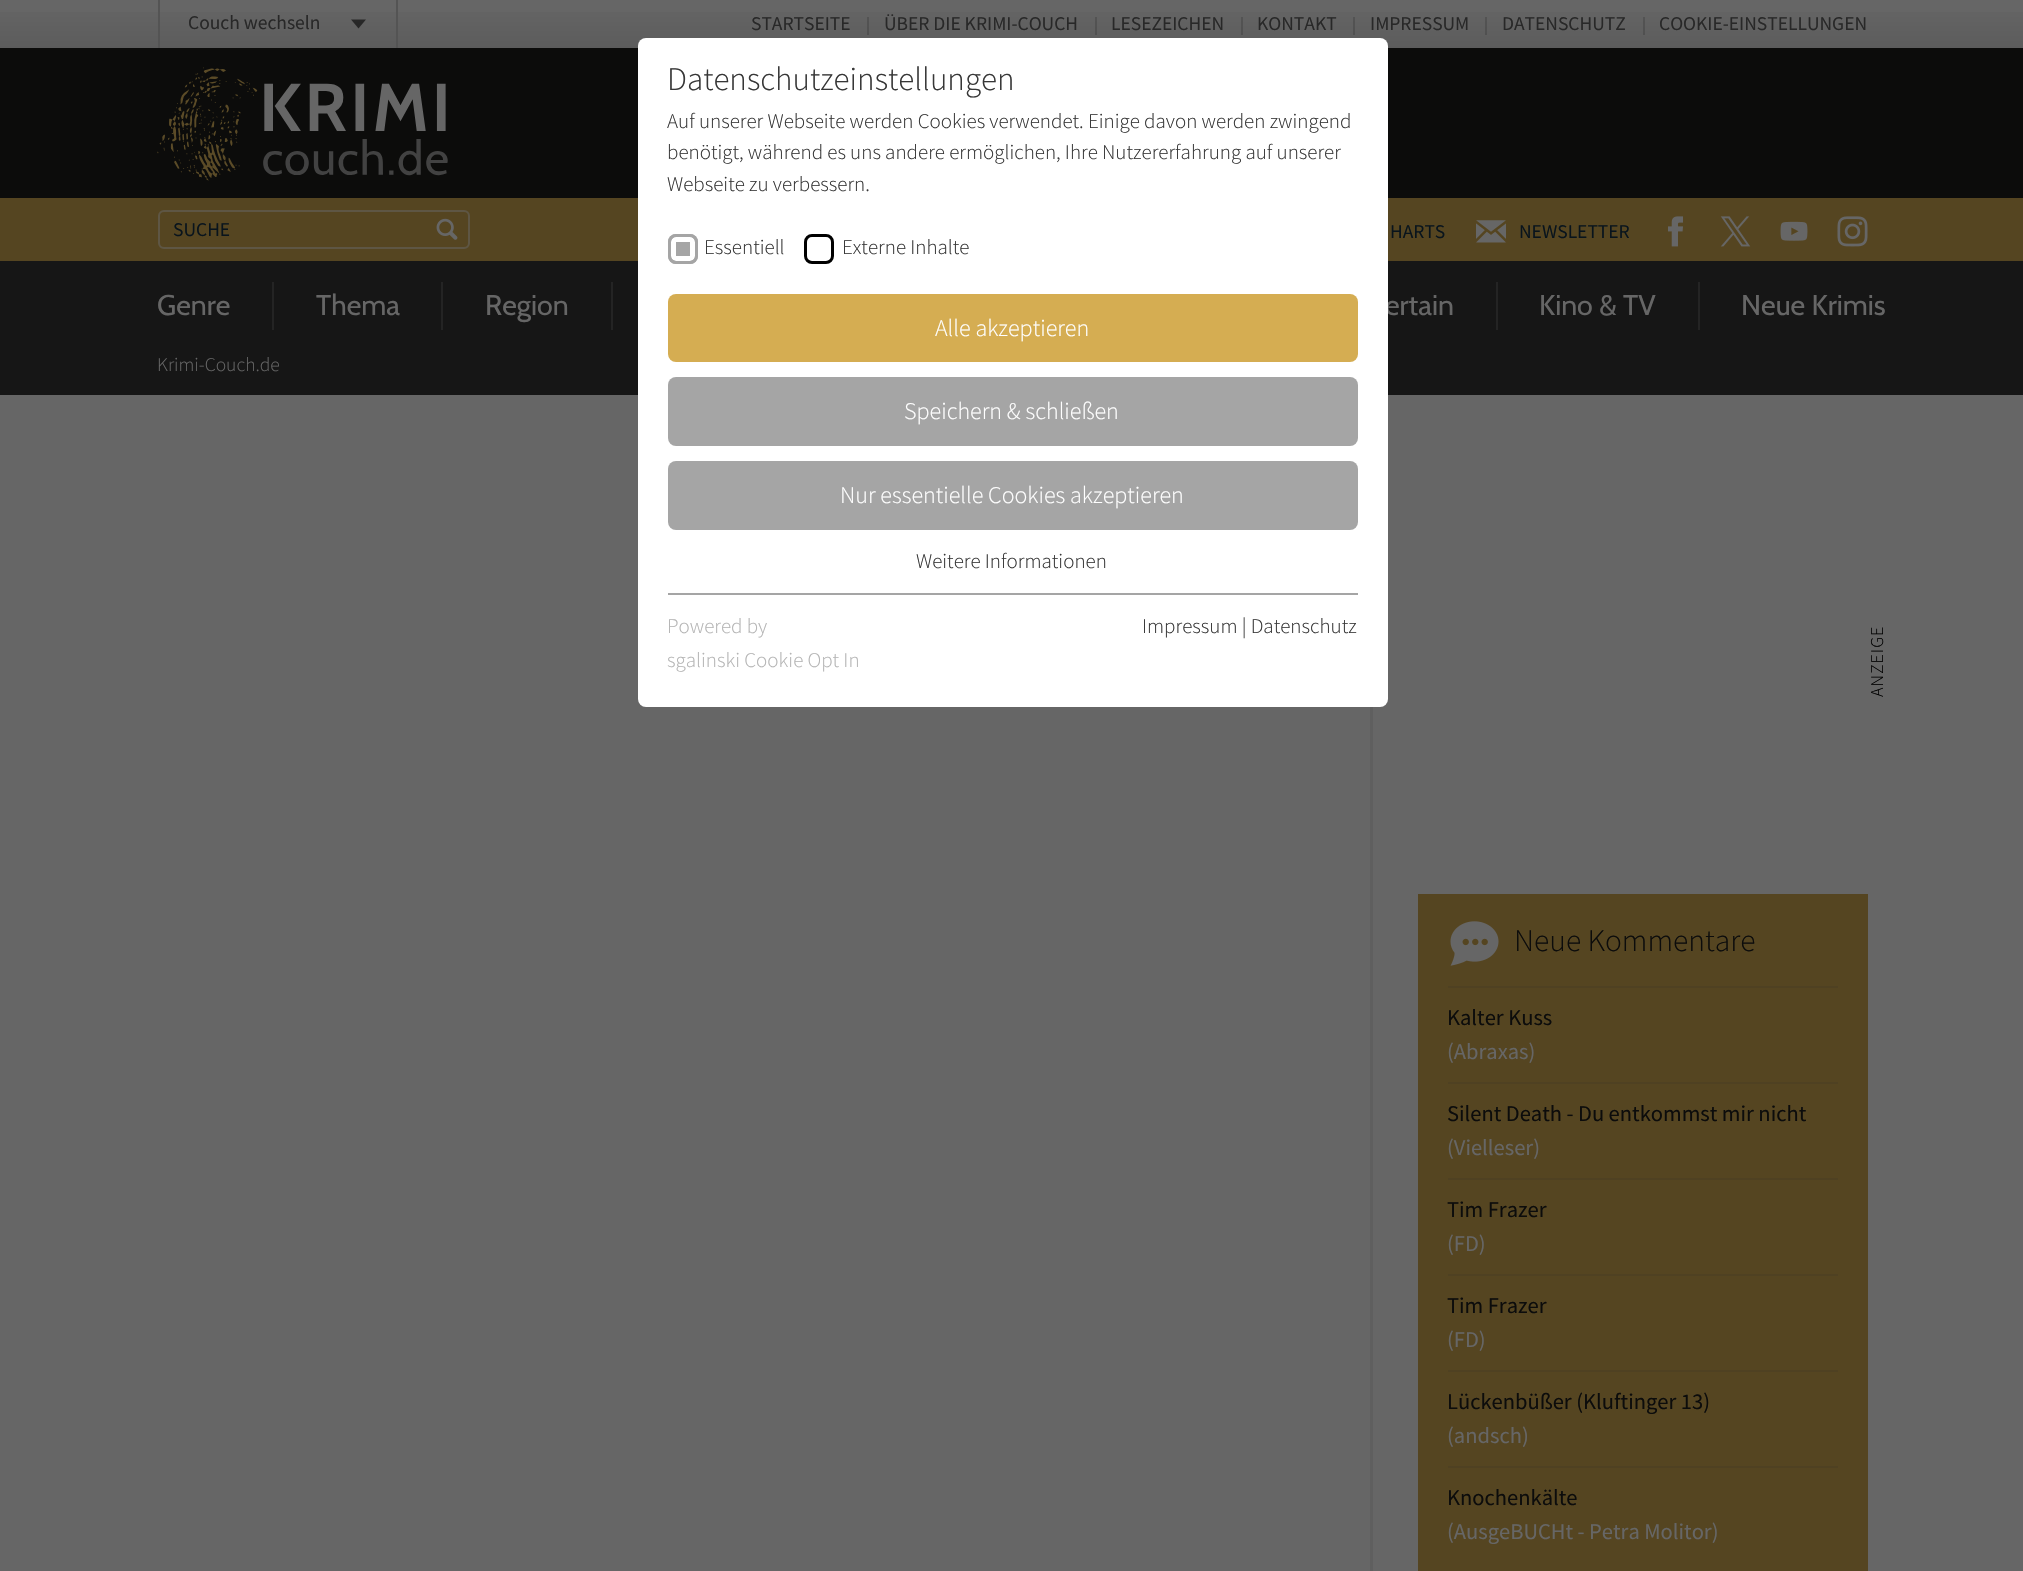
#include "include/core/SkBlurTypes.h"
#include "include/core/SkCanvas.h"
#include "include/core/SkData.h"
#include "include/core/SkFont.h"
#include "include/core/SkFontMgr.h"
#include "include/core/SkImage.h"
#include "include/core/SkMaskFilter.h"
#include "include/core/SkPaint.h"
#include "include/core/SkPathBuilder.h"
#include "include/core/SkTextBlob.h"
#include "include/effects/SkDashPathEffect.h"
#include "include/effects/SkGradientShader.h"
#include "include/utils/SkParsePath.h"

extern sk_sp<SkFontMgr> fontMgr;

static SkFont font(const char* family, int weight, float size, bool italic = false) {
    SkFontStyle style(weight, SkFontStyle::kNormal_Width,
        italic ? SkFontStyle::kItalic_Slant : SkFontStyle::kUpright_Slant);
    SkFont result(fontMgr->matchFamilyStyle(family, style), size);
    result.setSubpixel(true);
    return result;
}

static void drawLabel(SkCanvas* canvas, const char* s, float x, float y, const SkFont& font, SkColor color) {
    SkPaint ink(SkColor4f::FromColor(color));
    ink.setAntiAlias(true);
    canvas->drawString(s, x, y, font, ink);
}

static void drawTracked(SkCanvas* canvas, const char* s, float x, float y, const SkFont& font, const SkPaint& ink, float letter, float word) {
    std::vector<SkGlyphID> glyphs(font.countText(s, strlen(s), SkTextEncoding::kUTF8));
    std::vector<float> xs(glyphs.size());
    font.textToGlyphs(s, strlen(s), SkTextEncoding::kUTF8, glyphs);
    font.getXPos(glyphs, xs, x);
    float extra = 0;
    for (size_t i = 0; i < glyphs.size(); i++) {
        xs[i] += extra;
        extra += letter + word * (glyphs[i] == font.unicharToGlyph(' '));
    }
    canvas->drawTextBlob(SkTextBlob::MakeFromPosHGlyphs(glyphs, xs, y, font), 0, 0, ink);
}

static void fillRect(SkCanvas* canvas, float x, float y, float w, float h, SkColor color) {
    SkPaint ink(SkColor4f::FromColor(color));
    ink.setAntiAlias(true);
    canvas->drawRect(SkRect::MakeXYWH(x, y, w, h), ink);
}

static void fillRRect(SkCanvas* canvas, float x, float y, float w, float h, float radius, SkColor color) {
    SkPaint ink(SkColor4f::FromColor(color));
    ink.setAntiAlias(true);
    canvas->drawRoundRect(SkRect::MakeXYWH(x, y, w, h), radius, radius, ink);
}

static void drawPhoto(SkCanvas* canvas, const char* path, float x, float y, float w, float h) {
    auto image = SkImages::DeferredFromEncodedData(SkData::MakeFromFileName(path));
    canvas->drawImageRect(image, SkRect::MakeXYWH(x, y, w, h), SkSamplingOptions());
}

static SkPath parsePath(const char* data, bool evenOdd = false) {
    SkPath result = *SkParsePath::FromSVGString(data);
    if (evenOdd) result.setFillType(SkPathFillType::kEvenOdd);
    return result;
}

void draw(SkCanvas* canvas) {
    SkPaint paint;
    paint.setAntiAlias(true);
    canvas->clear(0xFF666666);
    fillRect(canvas, 0, 48, 2023, 150, 0xFF0C0C0B);
    {
        const SkColor colors[] = {0xFF666666, 0xFF5C5C5C};
        const float stops[] = {0, 1};
        const SkPoint ends[] = {{1012, 0}, {1012, 48}};
        paint.setShader(SkGradientShader::MakeLinear(ends, colors, stops, 2, SkTileMode::kClamp));
        paint.setAlpha(255);
    }
    canvas->drawRect(SkRect::MakeXYWH(0, 12, 2023, 36), paint);
    {
        const SkColor colors[] = {0xFF565656, 0xFF4E4E4E};
        const float stops[] = {0, 1};
        const SkPoint ends[] = {{1012, 0}, {1012, 48}};
        paint.setShader(SkGradientShader::MakeLinear(ends, colors, stops, 2, SkTileMode::kClamp));
        paint.setAlpha(255);
    }
    canvas->drawRect(SkRect::MakeXYWH(1643, 17, 2, 18), paint);
    canvas->drawRect(SkRect::MakeXYWH(1485, 17, 2, 18), paint);
    canvas->drawRect(SkRect::MakeXYWH(1353, 17, 2, 18), paint);
    canvas->drawRect(SkRect::MakeXYWH(1241, 17, 2, 18), paint);
    canvas->drawRect(SkRect::MakeXYWH(1095, 17, 2, 18), paint);
    canvas->drawRect(SkRect::MakeXYWH(867, 17, 2, 18), paint);
    drawPhoto(canvas, "assets/img1.png", 157, 67, 291, 114);
    SkFont font1 = font("Source Sans Pro", 400, 19.5f);
    drawLabel(canvas, "STARTSEITE", 751, 30, font1, 0xFF282828);
    drawLabel(canvas, "ÜBER DIE KRIMI-COUCH", 884, 30, font1, 0xFF282828);
    drawLabel(canvas, "LESEZEICHEN", 1111, 30, font1, 0xFF282828);
    drawLabel(canvas, "KONTAKT", 1257, 30, font1, 0xFF282828);
    drawLabel(canvas, "IMPRESSUM", 1370, 30, font1, 0xFF282828);
    drawLabel(canvas, "DATENSCHUTZ", 1502, 30, font1, 0xFF282828);
    drawLabel(canvas, "COOKIE-EINSTELLUNGEN", 1659, 30, font1, 0xFF282828);
    fillRect(canvas, 0, 261, 2023, 134, 0xFF161616);
    fillRect(canvas, 272, 282, 2, 48, 0xFF242424);
    SkFont font2 = font("Cabin", 400, 28.5f);
    drawLabel(canvas, "Genre", 157, 315, font2, 0xFF666666);
    fillRect(canvas, 441, 282, 2, 48, 0xFF242424);
    drawLabel(canvas, "Thema", 316, 315, font2, 0xFF666666);
    fillRect(canvas, 611, 282, 2, 48, 0xFF242424);
    drawLabel(canvas, "Region", 485, 315, font2, 0xFF666666);
    fillRect(canvas, 1496, 282, 2, 48, 0xFF242424);
    drawLabel(canvas, "ertain", 1385, 315, font2, 0xFF666666);
    fillRect(canvas, 1698, 282, 2, 48, 0xFF242424);
    drawLabel(canvas, "Kino & TV", 1539, 315, font2, 0xFF666666);
    drawLabel(canvas, "Neue Krimis", 1741, 315, font2, 0xFF666666);
    fillRect(canvas, 396, 0, 2, 48, 0xFF545454);
    fillRect(canvas, 158, 0, 2, 48, 0xFF545454);
    drawLabel(canvas, "Couch wechseln", 188, 29, font1, 0xFF282828);
    paint.setShader(nullptr);
    paint.setColor(0xBF141414);
    canvas->drawPath(parsePath("M351 19.5H366L358.5 28.5Z"), paint);
    fillRect(canvas, 0, 198, 2023, 63, 0xFF554521);
    paint.setStroke(true);
    paint.setStrokeWidth(2);
    paint.setColor(0xFF5E5644);
    canvas->drawRoundRect(SkRect::MakeXYWH(159, 211, 310, 37), 5, 5, paint);
    drawLabel(canvas, "SUCHE", 173, 236, font1, 0xFF09141C);
    drawPhoto(canvas, "assets/img2.png", 436, 218, 22, 22);
    drawLabel(canvas, "HARTS", 1390, 238, font1, 0xFF09141C);
    drawPhoto(canvas, "assets/img3.png", 1476, 220, 30, 23);
    drawLabel(canvas, "NEWSLETTER", 1519, 238, font1, 0xFF09141C);
    drawPhoto(canvas, "assets/img4.png", 1668, 216, 15, 31);
    drawPhoto(canvas, "assets/img5.png", 1720, 216, 31, 31);
    drawPhoto(canvas, "assets/img6.png", 1780, 221, 28, 20);
    drawPhoto(canvas, "assets/img7.png", 1837, 216, 31, 31);
    SkFont font3 = font("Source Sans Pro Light", 300, 19.5f);
    drawLabel(canvas, "Krimi-Couch.de", 157, 371, font3, 0xFF666666);
    fillRect(canvas, 1370, 707, 3, 864, 0xFF5F5F5F);
    SkFont font4 = font("Source Sans Pro Light", 300, 18);
    paint.setStroke(false);
    paint.setColor(0xFF000000);
    canvas->save();
    canvas->rotate(-90, 1883, 697);
    drawTracked(canvas, "ANZEIGE", 1883, 697, font4, paint, 1, 0);
    canvas->restore();
    fillRect(canvas, 1418, 894, 450, 677, 0xFF554521);
    fillRect(canvas, 1448, 986, 390, 2, 0xFF4F4122);
    drawPhoto(canvas, "assets/img8.png", 1450, 921, 49, 45);
    SkFont font5 = font("Source Sans Pro Light", 300, 31.5f);
    drawLabel(canvas, "Neue Kommentare", 1514, 951, font5, 0xFF0C0C0B);
    SkFont font6 = font("Source Sans Pro", 400, 22.5f);
    drawLabel(canvas, "Kalter Kuss", 1447, 1025, font6, 0xFF0C0C0B);
    drawLabel(canvas, "(Abraxas)", 1447, 1059, font6, 0xFF666666);
    fillRect(canvas, 1448, 1082, 390, 2, 0xFF4F4122);
    drawLabel(canvas, "Silent Death - Du entkommst mir nicht", 1447, 1121, font6, 0xFF0C0C0B);
    drawLabel(canvas, "(Vielleser)", 1447, 1155, font6, 0xFF666666);
    fillRect(canvas, 1448, 1178, 390, 2, 0xFF4F4122);
    drawLabel(canvas, "Tim Frazer", 1447, 1217, font6, 0xFF0C0C0B);
    drawLabel(canvas, "(FD)", 1447, 1251, font6, 0xFF666666);
    fillRect(canvas, 1448, 1274, 390, 2, 0xFF4F4122);
    drawLabel(canvas, "Tim Frazer", 1447, 1313, font6, 0xFF0C0C0B);
    drawLabel(canvas, "(FD)", 1447, 1347, font6, 0xFF666666);
    fillRect(canvas, 1448, 1370, 390, 2, 0xFF4F4122);
    drawLabel(canvas, "Lückenbüßer (Kluftinger 13)", 1447, 1409, font6, 0xFF0C0C0B);
    drawLabel(canvas, "(andsch)", 1447, 1443, font6, 0xFF666666);
    fillRect(canvas, 1448, 1466, 390, 2, 0xFF4F4122);
    drawLabel(canvas, "Knochenkälte", 1447, 1505, font6, 0xFF0C0C0B);
    drawLabel(canvas, "(AusgeBUCHt - Petra Molitor)", 1447, 1539, font6, 0xFF666666);
    fillRRect(canvas, 638, 38, 750, 669, 8, 0xFFFFFFFF);
    SkFont font7 = font("Source Sans Pro Light", 300, 33);
    drawLabel(canvas, "Datenschutzeinstellungen", 667, 90, font7, 0xFF373737);
    SkFont font8 = font("Source Sans Pro Light", 300, 21);
    drawLabel(canvas, "Auf unserer Webseite werden Cookies verwendet. Einige davon werden zwingend", 667, 128, font8, 0xFF373737);
    drawLabel(canvas, "benötigt, während es uns andere ermöglichen, Ihre Nutzererfahrung auf unserer", 667, 159, font8, 0xFF373737);
    drawLabel(canvas, "Webseite zu verbessern.", 667, 191, font8, 0xFF373737);
    fillRRect(canvas, 668, 234, 30, 30, 8, 0xFFA5A5A5);
    paint.setStroke(true);
    paint.setStrokeWidth(5);
    paint.setColor(0xFFFFFFFF);
    canvas->drawRoundRect(SkRect::MakeXYWH(673.5f, 239.5f, 19, 19), 2.5f, 2.5f, paint);
    paint.setStrokeWidth(3);
    paint.setColor(0xFFA5A5A5);
    canvas->drawRoundRect(SkRect::MakeXYWH(669.5f, 235.5f, 27, 27), 6.5f, 6.5f, paint);
    drawLabel(canvas, "Essentiell", 704, 254, font8, 0xFF373737);
    paint.setColor(0xFF000000);
    canvas->drawRoundRect(SkRect::MakeXYWH(805.5f, 235.5f, 27, 27), 6.5f, 6.5f, paint);
    drawLabel(canvas, "Externe Inhalte", 842, 254, font8, 0xFF373737);
    fillRRect(canvas, 668, 294, 690, 68, 8, 0xFFD5AD52);
    SkFont font9 = font("Source Sans Pro Light", 300, 24);
    drawLabel(canvas, "Alle akzeptieren", 935, 336, font9, 0xFFFFFFFF);
    fillRRect(canvas, 668, 377, 690, 69, 8, 0xFFA5A5A5);
    drawLabel(canvas, "Speichern & schließen", 904, 419, font9, 0xFFFFFFFF);
    fillRRect(canvas, 668, 461, 690, 69, 8, 0xFFA5A5A5);
    drawLabel(canvas, "Nur essentielle Cookies akzeptieren", 840, 503, font9, 0xFFFFFFFF);
    drawLabel(canvas, "Weitere Informationen", 916, 568, font8, 0xFF373737);
    fillRect(canvas, 668, 593, 690, 2, 0xFFA5A5A5);
    drawLabel(canvas, "Powered by", 667, 633, font8, 0xFFB4B4B4);
    drawLabel(canvas, "sgalinski Cookie Opt In", 667, 667, font8, 0xFFB4B4B4);
    drawLabel(canvas, "Impressum | Datenschutz", 1142, 633, font8, 0xFF373737);
}
